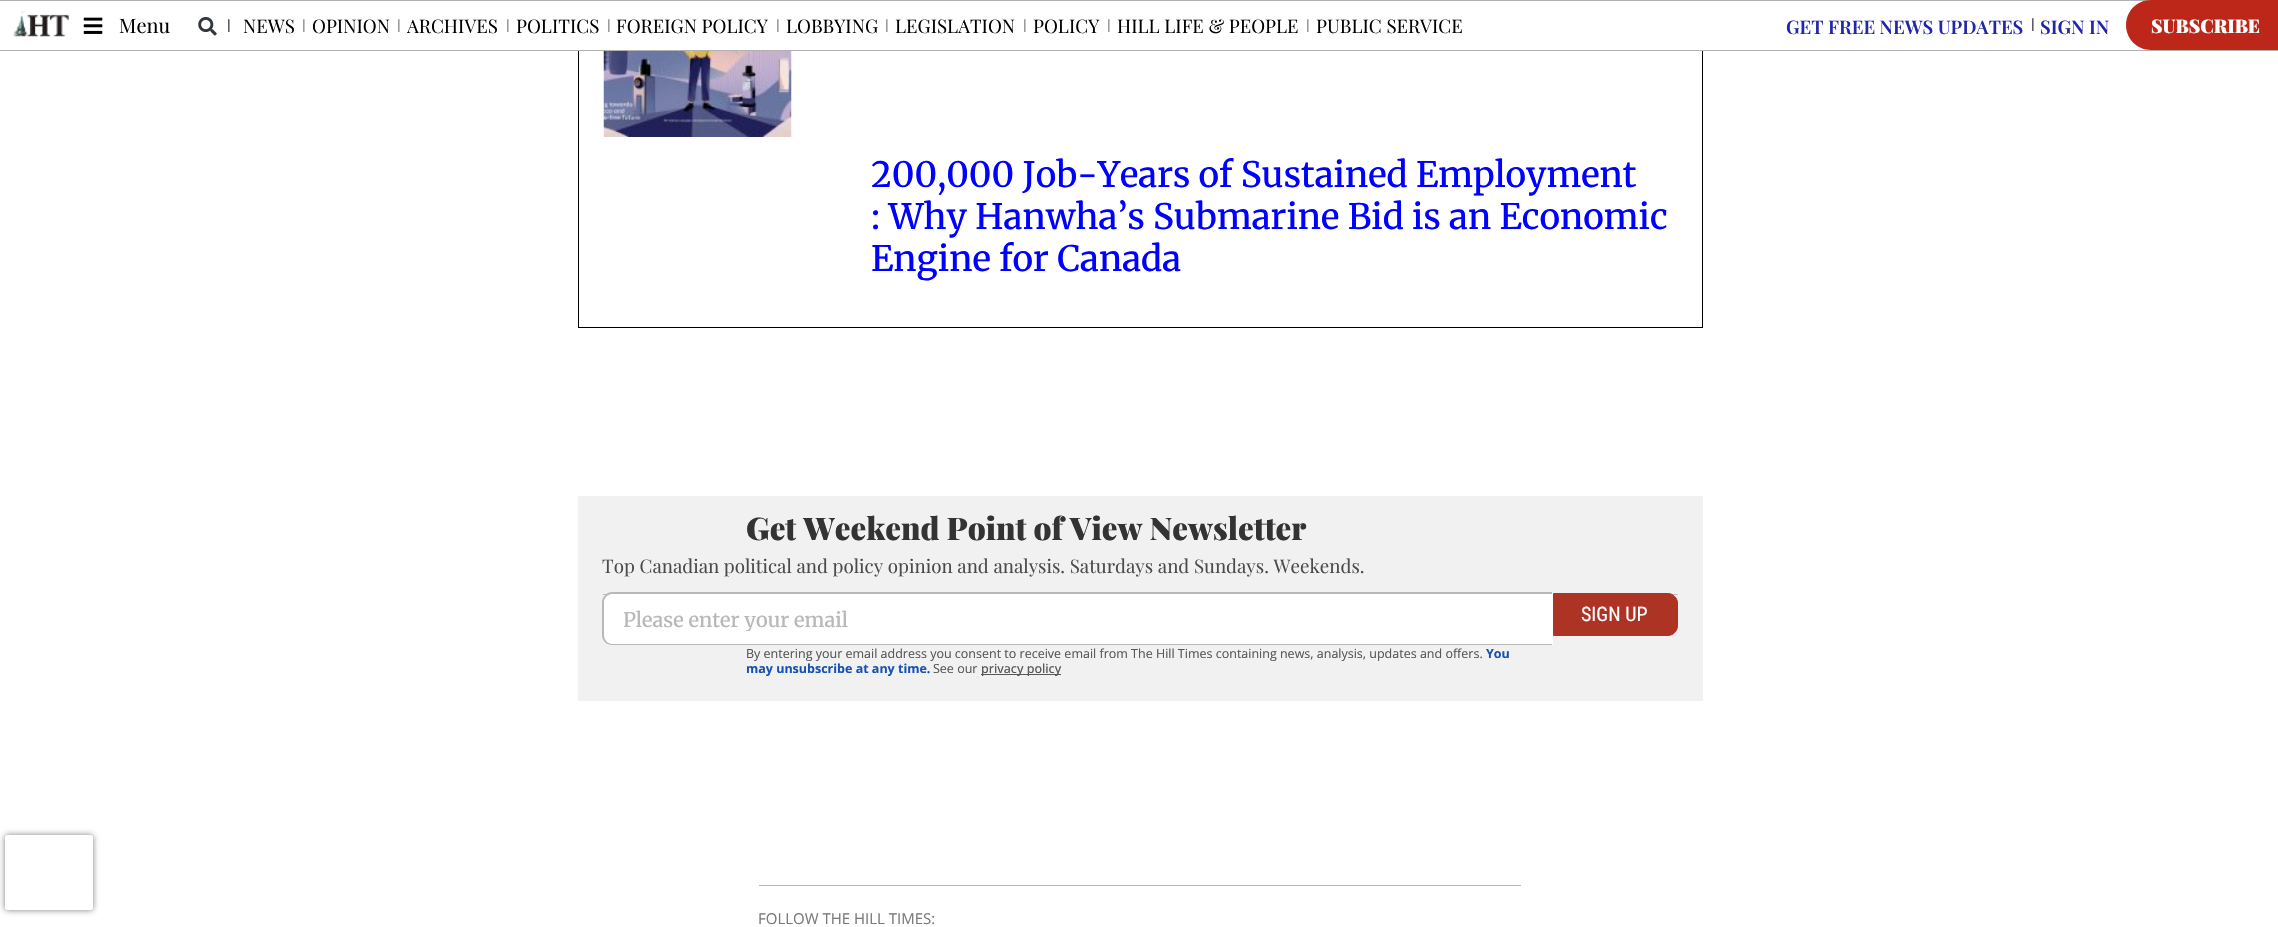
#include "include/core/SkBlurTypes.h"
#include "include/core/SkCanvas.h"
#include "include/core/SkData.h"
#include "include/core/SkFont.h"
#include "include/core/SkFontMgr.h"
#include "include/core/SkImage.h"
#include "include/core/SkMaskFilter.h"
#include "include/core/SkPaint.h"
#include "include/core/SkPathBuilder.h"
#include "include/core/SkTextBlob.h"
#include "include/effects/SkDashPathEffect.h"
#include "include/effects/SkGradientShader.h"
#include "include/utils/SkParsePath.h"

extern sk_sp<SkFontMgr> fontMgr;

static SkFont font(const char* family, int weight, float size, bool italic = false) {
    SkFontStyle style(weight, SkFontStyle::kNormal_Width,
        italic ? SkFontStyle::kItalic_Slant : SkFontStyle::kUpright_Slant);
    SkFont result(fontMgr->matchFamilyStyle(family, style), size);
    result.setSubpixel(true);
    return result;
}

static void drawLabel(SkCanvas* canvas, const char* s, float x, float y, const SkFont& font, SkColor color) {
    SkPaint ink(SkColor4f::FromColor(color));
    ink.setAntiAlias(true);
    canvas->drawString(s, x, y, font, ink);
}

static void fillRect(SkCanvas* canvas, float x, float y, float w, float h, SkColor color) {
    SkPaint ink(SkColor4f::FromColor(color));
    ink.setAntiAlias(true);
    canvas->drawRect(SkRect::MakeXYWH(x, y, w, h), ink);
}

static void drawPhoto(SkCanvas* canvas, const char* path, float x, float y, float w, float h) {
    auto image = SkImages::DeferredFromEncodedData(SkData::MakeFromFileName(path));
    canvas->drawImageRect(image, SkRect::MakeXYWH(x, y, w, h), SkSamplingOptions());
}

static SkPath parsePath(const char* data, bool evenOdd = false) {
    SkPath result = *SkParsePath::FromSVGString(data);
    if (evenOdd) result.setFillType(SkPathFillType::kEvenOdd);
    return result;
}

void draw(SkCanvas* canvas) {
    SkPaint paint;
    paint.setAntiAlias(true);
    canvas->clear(0xFFFFFFFF);
    paint.setStroke(true);
    paint.setStrokeWidth(1);
    paint.setColor(0xFF000000);
    canvas->drawRect(SkRect::MakeXYWH(578.5f, -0.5f, 1124, 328), paint);
    fillRect(canvas, 578, 1, 1125, 49, 0xFFFFFFFF);
    fillRect(canvas, 0, 0, 2151, 1, 0xFFB1B1B1);
    fillRect(canvas, 0, 50, 2278, 1, 0xFFB1B1B1);
    drawPhoto(canvas, "assets/img1.png", 13, 11, 56, 26);
    drawPhoto(canvas, "assets/img2.png", 83, 17, 20, 17);
    SkFont font1 = font("Playfair Display", 400, 20);
    drawLabel(canvas, "Menu", 119, 33, font1, 0xFF000000);
    drawPhoto(canvas, "assets/img3.png", 198, 17, 19, 19);
    SkFont font2 = font("Roboto", 400, 15);
    drawLabel(canvas, "|", 227, 30, font2, 0xFF333333);
    SkFont font3 = font("Playfair Display", 400, 18.75f);
    drawLabel(canvas, "NEWS", 243, 33, font3, 0xFF000000);
    drawLabel(canvas, "|", 302, 30, font2, 0xFF808080);
    drawLabel(canvas, "OPINION", 312, 33, font3, 0xFF000000);
    drawLabel(canvas, "|", 397, 30, font2, 0xFF808080);
    drawLabel(canvas, "ARCHIVES", 407, 33, font3, 0xFF000000);
    drawLabel(canvas, "|", 506, 30, font2, 0xFF808080);
    drawLabel(canvas, "POLITICS", 516, 33, font3, 0xFF000000);
    drawLabel(canvas, "|", 607, 30, font2, 0xFF808080);
    drawLabel(canvas, "FOREIGN POLICY", 616, 33, font3, 0xFF000000);
    drawLabel(canvas, "|", 776, 30, font2, 0xFF808080);
    drawLabel(canvas, "LOBBYING", 786, 33, font3, 0xFF000000);
    drawLabel(canvas, "|", 885, 30, font2, 0xFF808080);
    drawLabel(canvas, "LEGISLATION", 895, 33, font3, 0xFF000000);
    drawLabel(canvas, "|", 1023, 30, font2, 0xFF808080);
    drawLabel(canvas, "POLICY", 1033, 33, font3, 0xFF000000);
    drawLabel(canvas, "|", 1107, 30, font2, 0xFF808080);
    drawLabel(canvas, "HILL LIFE & PEOPLE", 1117, 33, font3, 0xFF000000);
    drawLabel(canvas, "|", 1306, 30, font2, 0xFF808080);
    drawLabel(canvas, "PUBLIC SERVICE", 1316, 33, font3, 0xFF000000);
    SkFont font4 = font("Playfair Display", 600, 18.75f);
    drawLabel(canvas, "GET FREE NEWS UPDATES", 1786, 34, font4, 0xFF2127A8);
    drawLabel(canvas, "|", 2031, 29, font2, 0xFF333333);
    drawLabel(canvas, "SIGN IN", 2040, 34, font4, 0xFF2127A8);
    paint.setStroke(false);
    paint.setColor(0xFFBD271A);
    canvas->drawPath(parsePath("M2151 0H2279V50H2151C2137 50 2126 39 2126 25C2126 11 2137 0 2151 0Z"), paint);
    SkFont font5 = font("Playfair Display", 900, 18.75f);
    drawLabel(canvas, "SUBSCRIBE", 2151, 33, font5, 0xFFFFFFFF);
    drawPhoto(canvas, "assets/img4.png", 603, 51, 189, 86);
    SkFont font6 = font("Merriweather", 500, 35);
    drawLabel(canvas, "200,000 Job-Years of Sustained Employment", 871, 187, font6, 0xFF0000FF);
    drawLabel(canvas, ": Why Hanwha’s Submarine Bid is an Economic", 871, 229, font6, 0xFF0000FF);
    drawLabel(canvas, "Engine for Canada", 871, 271, font6, 0xFF0000FF);
    fillRect(canvas, 578, 496, 1125, 205, 0xFFF1F1F1);
    SkFont font7 = font("Playfair Display", 900, 31.25f);
    drawLabel(canvas, "Get Weekend Point of View Newsletter", 746, 540, font7, 0xFF333333);
    drawLabel(canvas, "Top Canadian political and policy opinion and analysis. Saturdays and Sundays. Weekends.", 602, 573, font3, 0xFF4D4A4A);
    fillRect(canvas, 603, 594, 1075, 1, 0xFFBFBFBF);
    paint.setColor(0xFFFFFFFF);
    canvas->drawPath(parsePath("M613 593H1553V645H613C607.5 645 603 640.5 603 635V603C603 597.5 607.5 593 613 593Z"), paint);
    paint.setColor(0xFFB8B8B8);
    canvas->drawPath(parsePath("M612 592H1552V645H612C607 645 602 641 602 635V602C602 597 607 592 612 592ZM612 594H1552V644H612C608 644 604 640 604 635V602C604 598 608 594 612 594Z", true), paint);
    canvas->save();
    canvas->clipRect(SkRect::MakeXYWH(624, 606, 909, 25));
    SkFont font8 = font("Merriweather", 500, 20);
    drawLabel(canvas, "Please enter your email", 623, 627, font8, 0xFFB8B8B8);
    canvas->restore();
    paint.setColor(0xFFAD3324);
    canvas->drawPath(parsePath("M1553.5 593.5H1668C1673 593.5 1677.5 598 1677.5 603V626C1677.5 631 1673 635.5 1668 635.5H1553.5Z"), paint);
    paint.setStroke(true);
    canvas->drawPath(parsePath("M1553.5 593.5H1668C1673 593.5 1677.5 598 1677.5 603V626C1677.5 631 1673 635.5 1668 635.5H1553.5Z"), paint);
    SkFont font9 = font("Roboto Condensed", 400, 20);
    drawLabel(canvas, "SIGN UP", 1581, 621, font9, 0xFFFFFFFF);
    SkFont font10 = font("Open Sans", 400, 12.5f);
    drawLabel(canvas, "By entering your email address you consent to receive email from The Hill Times containing news, analysis, updates and offers.", 746, 658, font10, 0xFF575555);
    SkFont font11 = font("Open Sans", 700, 12.5f);
    drawLabel(canvas, "You", 1486, 658, font11, 0xFF1652B4);
    drawLabel(canvas, "may unsubscribe at any time.", 746, 673, font11, 0xFF1652B4);
    drawLabel(canvas, "See our", 933, 673, font10, 0xFF575555);
    fillRect(canvas, 981, 674, 80, 1, 0xFF575555);
    SkFont font12 = font("Open Sans", 500, 12.5f);
    drawLabel(canvas, "privacy policy", 981, 673, font12, 0xFF575555);
    canvas->save();
    canvas->clipPath(parsePath("M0 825H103V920H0ZM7.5 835H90.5C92 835 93 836 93 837.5V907.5C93 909 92 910 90.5 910H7.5C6 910 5 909 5 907.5V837.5C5 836 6 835 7.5 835Z", true), true);
    paint.setStroke(false);
    paint.setColor(0xFF808080);
    paint.setMaskFilter(SkMaskFilter::MakeBlur(kNormal_SkBlurStyle, 3));
    canvas->drawRoundRect(SkRect::MakeXYWH(5, 835, 88, 75), 2.5f, 2.5f, paint);
    paint.setMaskFilter(nullptr);
    canvas->restore();
    fillRect(canvas, 759, 885, 762, 1, 0xFFB7B7B7);
    SkFont font13 = font("Open Sans", 400, 15);
    drawLabel(canvas, "FOLLOW THE HILL TIMES:", 758, 924, font13, 0xFF7A7A7A);
}
